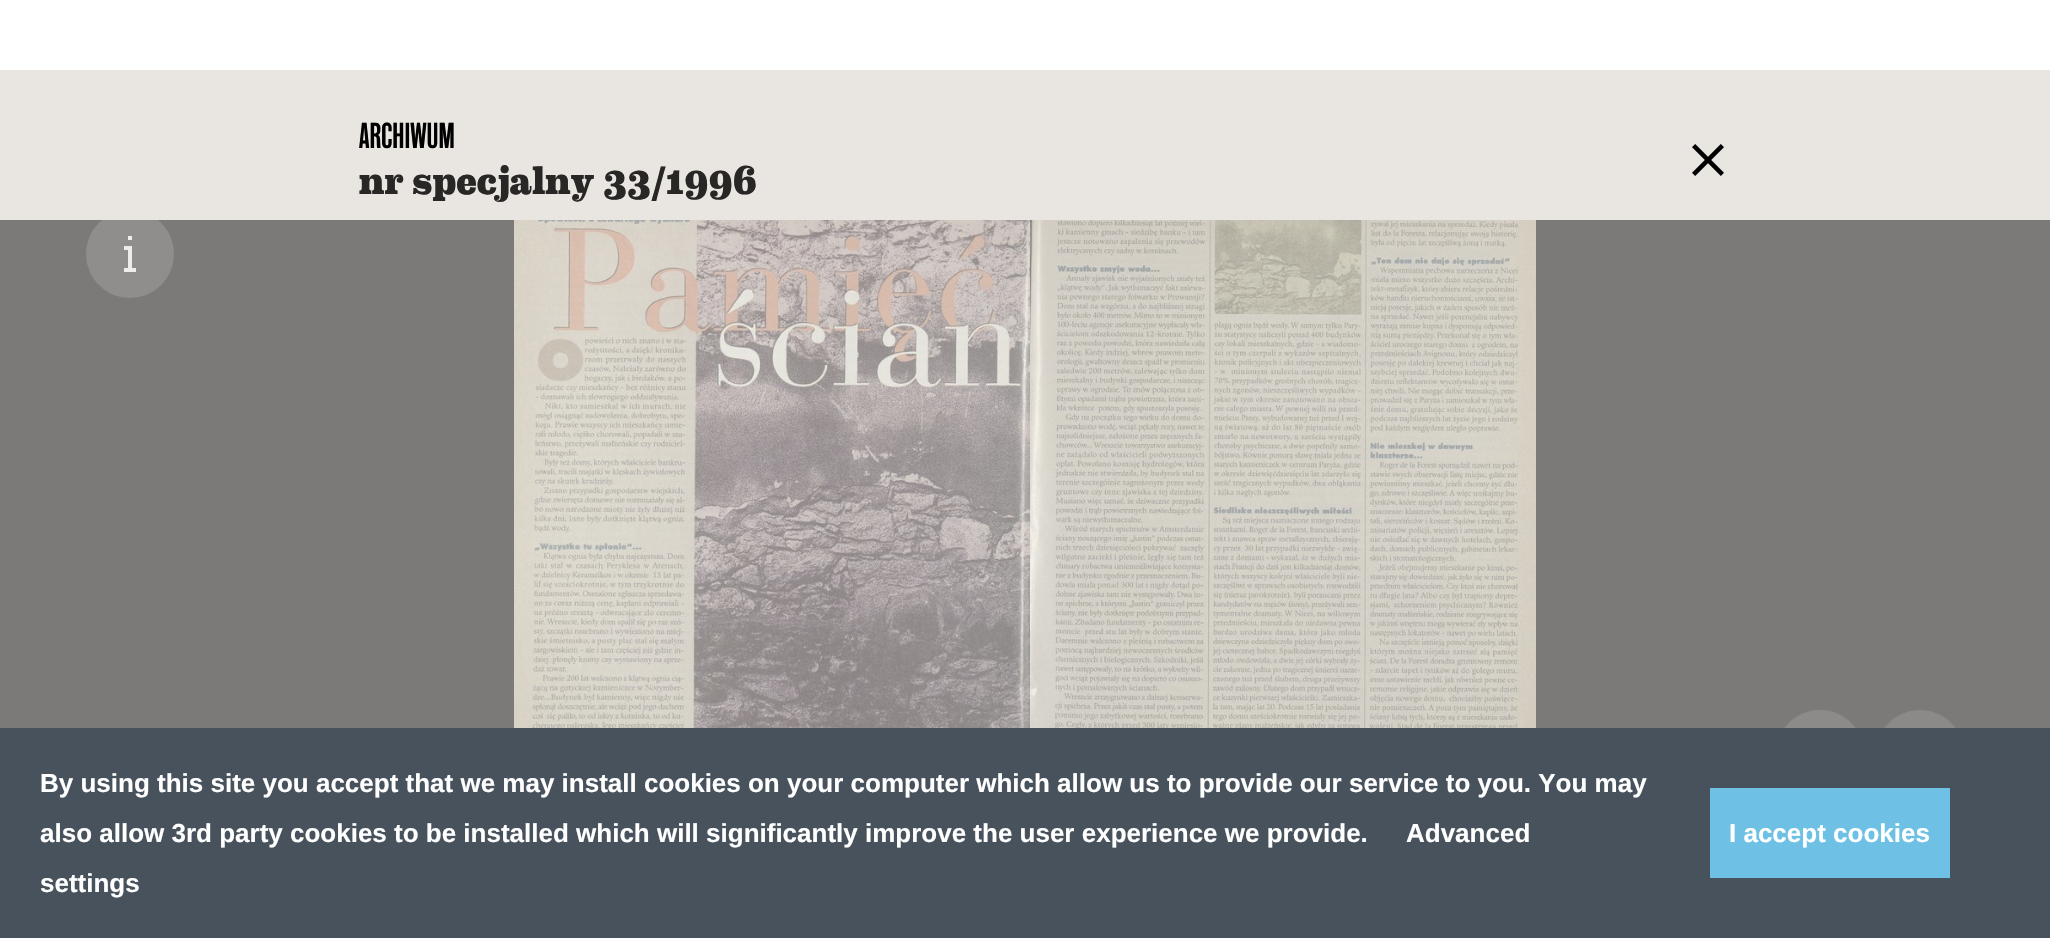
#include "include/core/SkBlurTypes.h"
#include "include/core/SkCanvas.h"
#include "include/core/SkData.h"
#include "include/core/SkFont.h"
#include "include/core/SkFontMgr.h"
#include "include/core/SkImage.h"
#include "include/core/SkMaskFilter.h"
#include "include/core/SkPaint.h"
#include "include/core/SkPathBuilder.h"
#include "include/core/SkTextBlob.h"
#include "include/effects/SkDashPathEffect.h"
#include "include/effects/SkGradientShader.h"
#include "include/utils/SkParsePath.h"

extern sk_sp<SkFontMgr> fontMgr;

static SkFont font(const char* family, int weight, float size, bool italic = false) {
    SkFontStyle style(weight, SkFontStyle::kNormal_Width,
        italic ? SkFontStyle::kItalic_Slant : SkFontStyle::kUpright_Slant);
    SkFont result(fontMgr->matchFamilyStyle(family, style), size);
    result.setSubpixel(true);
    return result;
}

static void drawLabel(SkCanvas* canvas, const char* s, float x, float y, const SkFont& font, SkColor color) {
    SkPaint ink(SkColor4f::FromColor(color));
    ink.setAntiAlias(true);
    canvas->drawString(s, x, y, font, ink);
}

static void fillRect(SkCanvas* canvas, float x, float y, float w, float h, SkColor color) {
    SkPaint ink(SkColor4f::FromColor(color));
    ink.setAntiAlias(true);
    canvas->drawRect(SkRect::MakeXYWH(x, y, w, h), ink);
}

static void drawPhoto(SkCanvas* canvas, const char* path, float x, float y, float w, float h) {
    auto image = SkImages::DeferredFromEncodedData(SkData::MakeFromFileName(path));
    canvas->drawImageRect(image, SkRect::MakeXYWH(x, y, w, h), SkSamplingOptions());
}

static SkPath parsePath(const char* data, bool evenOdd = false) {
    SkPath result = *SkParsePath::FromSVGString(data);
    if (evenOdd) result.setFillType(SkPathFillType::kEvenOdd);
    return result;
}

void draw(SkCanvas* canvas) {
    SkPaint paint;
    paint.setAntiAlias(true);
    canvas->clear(0xFF7B7A79);
    fillRect(canvas, 0, 0, 2050, 70, 0xFFFFFFFF);
    paint.setColor(0xFF8F8E8D);
    canvas->drawCircle(130, 254, 44, paint);
    fillRect(canvas, 0, 70, 2050, 150, 0xFFE9E5E0);
    SkFont font1 = font("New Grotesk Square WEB", 500, 36);
    drawLabel(canvas, "ARCHIWUM", 359, 148, font1, 0xFF000000);
    SkFont font2 = font("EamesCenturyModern", 800, 40);
    drawLabel(canvas, "nr specjalny 33/1996", 359, 194, font2, 0xFF292626);
    drawPhoto(canvas, "assets/img1.png", 1692, 144, 32, 32);
    paint.setColor(0xFFEFEDE9);
    canvas->drawPath(parsePath("M128 246H132V270H128ZM128 236H132V240H128ZM124 246H128V250H124Z"), paint);
    fillRect(canvas, 124, 268, 12, 4, 0xFFEFEDE9);
    drawPhoto(canvas, "assets/img2.png", 514, 220, 516, 508);
    drawPhoto(canvas, "assets/img3.png", 1030, 220, 506, 508);
    drawPhoto(canvas, "assets/img4.png", 1784, 710, 72, 18);
    paint.setColor(0xFF8C8A89);
    canvas->drawCircle(1920, 754, 44, paint);
    fillRect(canvas, 0, 728, 2050, 210, 0xFF47525D);
    SkFont font3 = font("Liberation Sans", 700, 26);
    drawLabel(canvas, "By using this site you accept that we may install cookies on your computer which allow us to provide our service to you. You may", 40, 792, font3, 0xFFFFFFFF);
    drawLabel(canvas, "also allow 3rd party cookies to be installed which will significantly improve the user experience we provide.", 40, 842, font3, 0xFFFFFFFF);
    drawLabel(canvas, "Advanced", 1406, 842, font3, 0xFFFFFFFF);
    drawLabel(canvas, "settings", 40, 892, font3, 0xFFFFFFFF);
    fillRect(canvas, 1710, 788, 240, 90, 0xFF6EC1E4);
    drawLabel(canvas, "I accept cookies", 1729, 842, font3, 0xFFFFFFFF);
}
